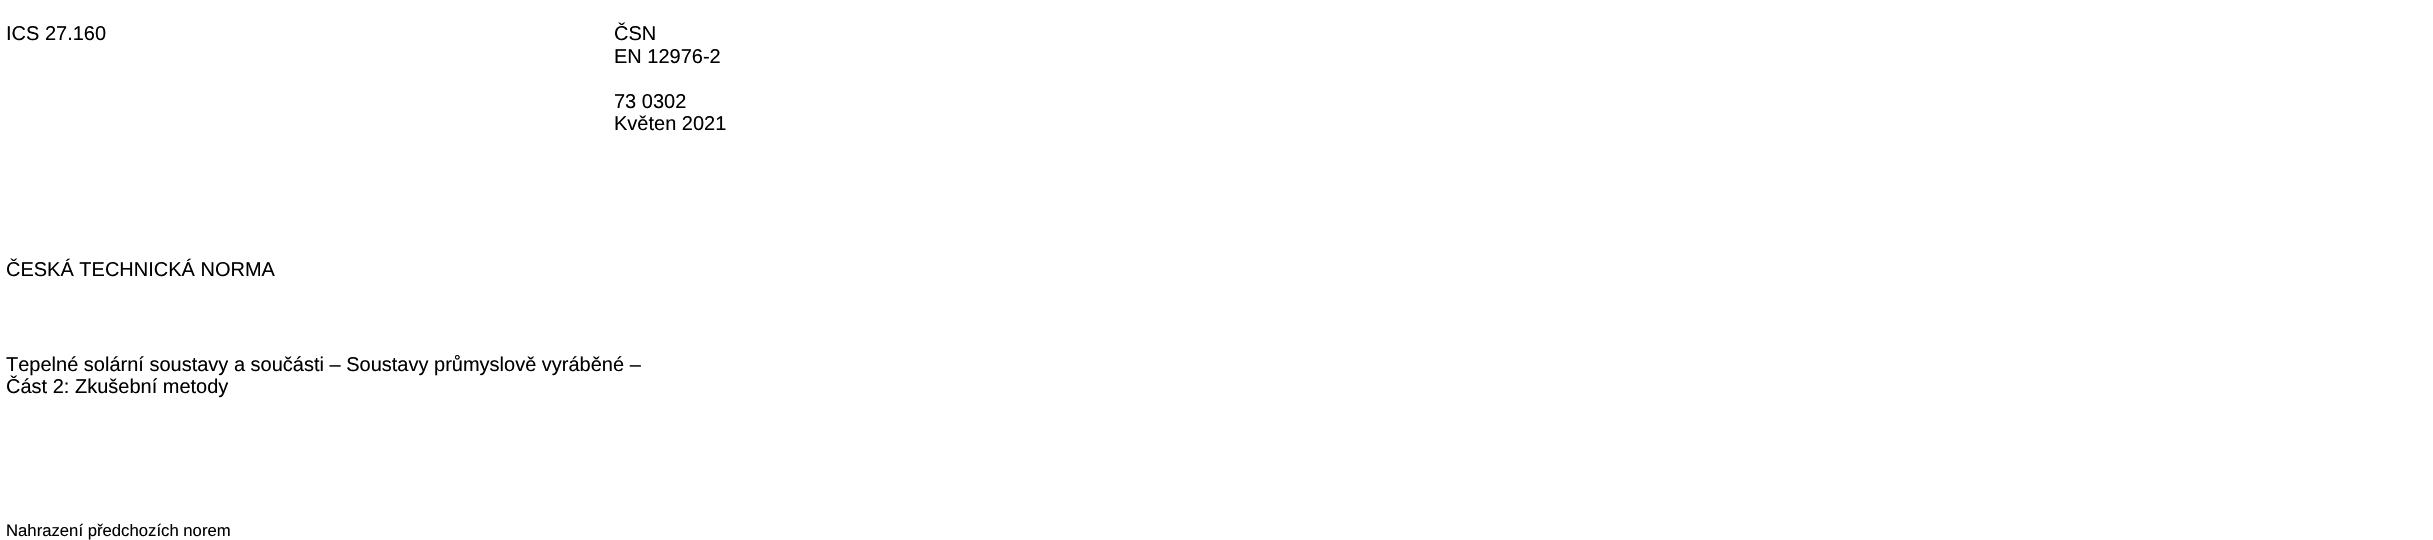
#include "include/core/SkBlurTypes.h"
#include "include/core/SkCanvas.h"
#include "include/core/SkData.h"
#include "include/core/SkFont.h"
#include "include/core/SkFontMgr.h"
#include "include/core/SkImage.h"
#include "include/core/SkMaskFilter.h"
#include "include/core/SkPaint.h"
#include "include/core/SkPathBuilder.h"
#include "include/core/SkTextBlob.h"
#include "include/effects/SkDashPathEffect.h"
#include "include/effects/SkGradientShader.h"
#include "include/utils/SkParsePath.h"

extern sk_sp<SkFontMgr> fontMgr;

static SkFont font(const char* family, int weight, float size, bool italic = false) {
    SkFontStyle style(weight, SkFontStyle::kNormal_Width,
        italic ? SkFontStyle::kItalic_Slant : SkFontStyle::kUpright_Slant);
    SkFont result(fontMgr->matchFamilyStyle(family, style), size);
    result.setSubpixel(true);
    return result;
}

static void drawLabel(SkCanvas* canvas, const char* s, float x, float y, const SkFont& font, SkColor color) {
    SkPaint ink(SkColor4f::FromColor(color));
    ink.setAntiAlias(true);
    canvas->drawString(s, x, y, font, ink);
}

void draw(SkCanvas* canvas) {
    SkPaint paint;
    paint.setAntiAlias(true);
    canvas->clear(0xFFFFFFFF);
    SkFont font1 = font("Liberation Sans", 400, 20);
    drawLabel(canvas, "ICS 27.160", 6, 40, font1, 0xFF000000);
    drawLabel(canvas, "ČSN", 614, 40, font1, 0xFF000000);
    drawLabel(canvas, "EN 12976-2", 614, 63, font1, 0xFF000000);
    drawLabel(canvas, "73 0302", 614, 108, font1, 0xFF000000);
    drawLabel(canvas, "Květen 2021", 614, 130, font1, 0xFF000000);
    drawLabel(canvas, "ČESKÁ TECHNICKÁ NORMA", 6, 276, font1, 0xFF000000);
    drawLabel(canvas, "Tepelné solární soustavy a součásti – Soustavy průmyslově vyráběné –", 6, 371, font1, 0xFF000000);
    drawLabel(canvas, "Část 2: Zkušební metody", 6, 393, font1, 0xFF000000);
    SkFont font2 = font("Liberation Sans", 400, 16.7f);
    drawLabel(canvas, "Nahrazení předchozích norem", 6, 536, font2, 0xFF000000);
}
